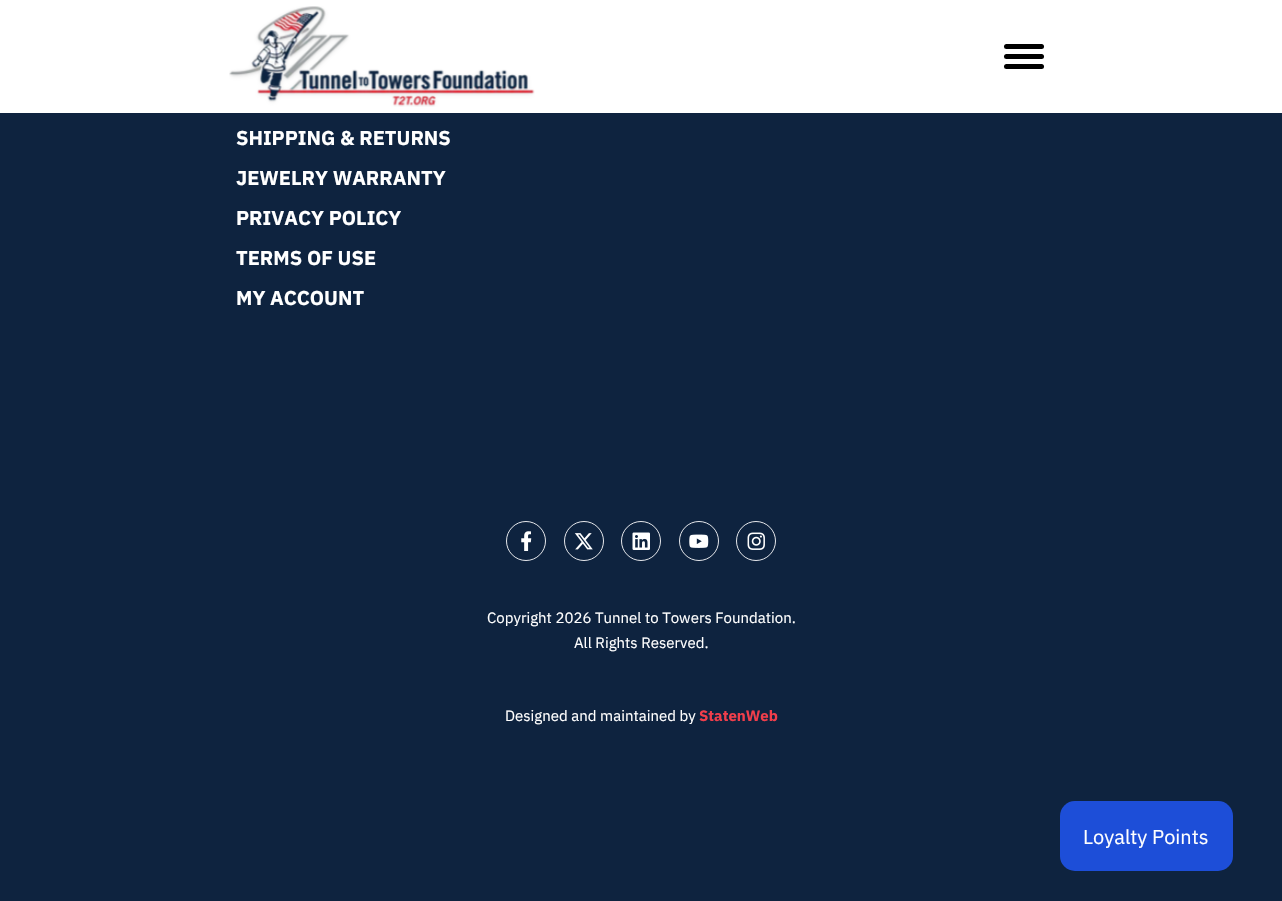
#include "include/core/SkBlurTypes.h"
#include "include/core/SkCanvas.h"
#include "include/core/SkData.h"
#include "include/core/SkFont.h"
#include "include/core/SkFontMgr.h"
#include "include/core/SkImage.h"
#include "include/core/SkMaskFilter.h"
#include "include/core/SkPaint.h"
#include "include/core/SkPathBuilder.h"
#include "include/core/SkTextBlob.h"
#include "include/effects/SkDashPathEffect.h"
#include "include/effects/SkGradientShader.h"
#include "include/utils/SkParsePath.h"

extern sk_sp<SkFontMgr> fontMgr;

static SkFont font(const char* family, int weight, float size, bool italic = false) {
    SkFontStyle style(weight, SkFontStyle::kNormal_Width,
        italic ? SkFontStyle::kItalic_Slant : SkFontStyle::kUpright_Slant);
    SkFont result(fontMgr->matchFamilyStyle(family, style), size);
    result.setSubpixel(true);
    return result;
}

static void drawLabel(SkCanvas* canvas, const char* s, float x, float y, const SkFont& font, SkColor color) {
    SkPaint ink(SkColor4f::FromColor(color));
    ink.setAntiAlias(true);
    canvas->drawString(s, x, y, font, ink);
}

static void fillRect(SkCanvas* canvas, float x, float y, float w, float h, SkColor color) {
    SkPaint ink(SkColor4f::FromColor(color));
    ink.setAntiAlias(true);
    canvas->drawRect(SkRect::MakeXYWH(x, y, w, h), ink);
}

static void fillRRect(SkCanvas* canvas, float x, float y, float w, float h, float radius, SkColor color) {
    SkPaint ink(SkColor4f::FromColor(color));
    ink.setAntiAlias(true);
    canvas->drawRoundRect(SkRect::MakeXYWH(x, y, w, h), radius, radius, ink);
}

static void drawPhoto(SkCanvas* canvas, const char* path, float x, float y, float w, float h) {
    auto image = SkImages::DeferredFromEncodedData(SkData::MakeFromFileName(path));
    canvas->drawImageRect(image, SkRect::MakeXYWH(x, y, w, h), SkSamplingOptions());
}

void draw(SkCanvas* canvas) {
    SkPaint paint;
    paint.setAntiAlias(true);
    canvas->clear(0xFF0E233F);
    fillRect(canvas, 0, 0, 1282, 113, 0xFFFFFFFF);
    drawPhoto(canvas, "assets/img1.png", 229, 6, 306, 101);
    fillRRect(canvas, 1004, 54, 40, 5, 2.5f, 0xFF000000);
    fillRRect(canvas, 1004, 44, 40, 5, 2.5f, 0xFF000000);
    fillRRect(canvas, 1004, 64, 40, 5, 2.5f, 0xFF000000);
    SkFont font1 = font("IBM Plex Sans", 700, 20);
    drawLabel(canvas, "SHIPPING & RETURNS", 236, 145, font1, 0xFFFFFFFF);
    drawLabel(canvas, "JEWELRY WARRANTY", 236, 185, font1, 0xFFFFFFFF);
    drawLabel(canvas, "PRIVACY POLICY", 236, 225, font1, 0xFFFFFFFF);
    drawLabel(canvas, "TERMS OF USE", 236, 265, font1, 0xFFFFFFFF);
    drawLabel(canvas, "MY ACCOUNT", 236, 305, font1, 0xFFFFFFFF);
    paint.setStroke(true);
    paint.setStrokeWidth(1);
    paint.setColor(0xFFE5E7EB);
    canvas->drawCircle(526, 541, 19.5f, paint);
    drawPhoto(canvas, "assets/img2.png", 521, 531, 11, 20);
    canvas->drawCircle(584, 541, 19.5f, paint);
    drawPhoto(canvas, "assets/img3.png", 574, 533, 19, 17);
    canvas->drawCircle(641, 541, 19.5f, paint);
    drawPhoto(canvas, "assets/img4.png", 632, 532, 18, 18);
    canvas->drawCircle(699, 541, 19.5f, paint);
    drawPhoto(canvas, "assets/img5.png", 689, 534, 20, 14);
    canvas->drawCircle(756, 541, 19.5f, paint);
    drawPhoto(canvas, "assets/img6.png", 747, 532, 18, 18);
    SkFont font2 = font("IBM Plex Sans", 400, 15);
    drawLabel(canvas, "Copyright 2026 Tunnel to Towers Foundation.", 487, 623, font2, 0xFFFFFFFF);
    drawLabel(canvas, "All Rights Reserved.", 574, 648, font2, 0xFFFFFFFF);
    drawLabel(canvas, "Designed and maintained by", 505, 721, font2, 0xFFFFFFFF);
    SkFont font3 = font("IBM Plex Sans", 700, 15);
    drawLabel(canvas, "StatenWeb", 699, 721, font3, 0xFFF13E4B);
    fillRRect(canvas, 1060, 801, 173, 70, 15, 0xFF1D4ED8);
    SkFont font4 = font("IBM Plex Sans", 400, 20);
    drawLabel(canvas, "Loyalty Points", 1083, 844, font4, 0xFFFFFFFF);
}
